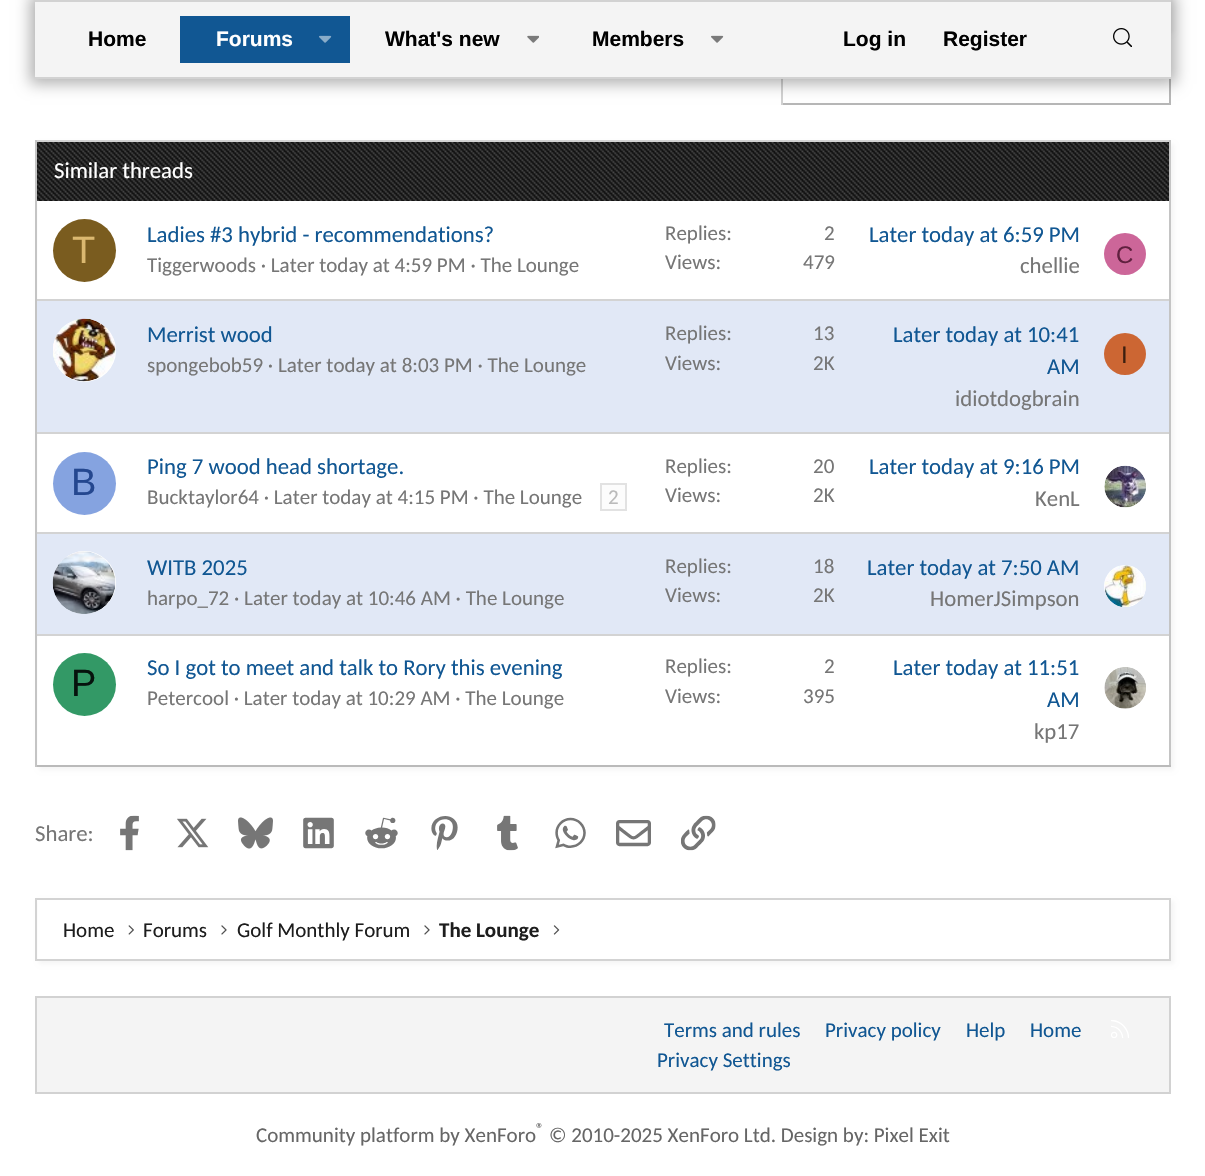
#include "include/core/SkBlurTypes.h"
#include "include/core/SkCanvas.h"
#include "include/core/SkData.h"
#include "include/core/SkFont.h"
#include "include/core/SkFontMgr.h"
#include "include/core/SkImage.h"
#include "include/core/SkMaskFilter.h"
#include "include/core/SkPaint.h"
#include "include/core/SkPathBuilder.h"
#include "include/core/SkTextBlob.h"
#include "include/effects/SkDashPathEffect.h"
#include "include/effects/SkGradientShader.h"
#include "include/utils/SkParsePath.h"

extern sk_sp<SkFontMgr> fontMgr;

static SkFont font(const char* family, int weight, float size, bool italic = false) {
    SkFontStyle style(weight, SkFontStyle::kNormal_Width,
        italic ? SkFontStyle::kItalic_Slant : SkFontStyle::kUpright_Slant);
    SkFont result(fontMgr->matchFamilyStyle(family, style), size);
    result.setSubpixel(true);
    return result;
}

static void drawLabel(SkCanvas* canvas, const char* s, float x, float y, const SkFont& font, SkColor color) {
    SkPaint ink(SkColor4f::FromColor(color));
    ink.setAntiAlias(true);
    canvas->drawString(s, x, y, font, ink);
}

static void fillRect(SkCanvas* canvas, float x, float y, float w, float h, SkColor color) {
    SkPaint ink(SkColor4f::FromColor(color));
    ink.setAntiAlias(true);
    canvas->drawRect(SkRect::MakeXYWH(x, y, w, h), ink);
}

static void drawPhoto(SkCanvas* canvas, const char* path, float x, float y, float w, float h) {
    auto image = SkImages::DeferredFromEncodedData(SkData::MakeFromFileName(path));
    canvas->drawImageRect(image, SkRect::MakeXYWH(x, y, w, h), SkSamplingOptions());
}

void draw(SkCanvas* canvas) {
    SkPaint paint;
    paint.setAntiAlias(true);
    canvas->clear(0xFFFFFFFF);
    fillRect(canvas, 1169, 79, 2, 26, 0xFFB7B7B7);
    fillRect(canvas, 781, 103, 390, 2, 0xFFB7B7B7);
    fillRect(canvas, 781, 79, 2, 26, 0xFFD1D1D1);
    paint.setColor(0x4D000000);
    paint.setMaskFilter(SkMaskFilter::MakeBlur(kNormal_SkBlurStyle, 7));
    canvas->drawRect(SkRect::MakeXYWH(30, -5, 1146, 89), paint);
    paint.setMaskFilter(nullptr);
    paint.setColor(0x0A000000);
    paint.setMaskFilter(SkMaskFilter::MakeBlur(kNormal_SkBlurStyle, 2));
    canvas->drawRect(SkRect::MakeXYWH(39, -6, 1135, 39), paint);
    paint.setMaskFilter(nullptr);
    fillRect(canvas, 35, 2, 1136, 75, 0xFFF4F4F4);
    fillRect(canvas, 35, 0, 1136, 2, 0xFFD2D2D2);
    fillRect(canvas, 35, 77, 1136, 2, 0xFFD2D2D2);
    SkFont font1 = font("Liberation Sans", 700, 21);
    drawLabel(canvas, "Home", 88, 46, font1, 0xFF000000);
    fillRect(canvas, 180, 16, 170, 47, 0xFF115793);
    drawLabel(canvas, "Forums", 216, 46, font1, 0xFFFFFFFF);
    drawPhoto(canvas, "assets/img1.png", 319, 35, 13, 8);
    drawLabel(canvas, "What's new", 385, 46, font1, 0xFF000000);
    drawPhoto(canvas, "assets/img2.png", 527, 35, 12, 8);
    drawLabel(canvas, "Members", 592, 46, font1, 0xFF000000);
    drawPhoto(canvas, "assets/img3.png", 711, 35, 13, 8);
    drawLabel(canvas, "Log in", 843, 46, font1, 0xFF000000);
    drawLabel(canvas, "Register", 943, 46, font1, 0xFF000000);
    drawPhoto(canvas, "assets/img4.png", 1113, 28, 19, 19);
    paint.setMaskFilter(SkMaskFilter::MakeBlur(kNormal_SkBlurStyle, 2));
    canvas->drawRect(SkRect::MakeXYWH(39, 144, 1135, 626), paint);
    paint.setMaskFilter(nullptr);
    fillRect(canvas, 38, 201, 1131, 564, 0xFFFFFFFF);
    fillRect(canvas, 35, 140, 1136, 2, 0xFFD3D3D3);
    fillRect(canvas, 1169, 140, 2, 627, 0xFFC4C4C4);
    fillRect(canvas, 35, 765, 1136, 2, 0xFFBABABA);
    fillRect(canvas, 35, 140, 2, 627, 0xFFC4C4C4);
    fillRect(canvas, 37, 142, 1132, 59, 0xFF111111);
    drawPhoto(canvas, "assets/img5.png", 37, 142, 1132, 59);
    SkFont font2 = font("Carlito", 400, 22.75f);
    drawLabel(canvas, "Similar threads", 54, 178, font2, 0xFFFFFFFF);
    paint.setColor(0xFF7A5C1F);
    canvas->drawCircle(84.5f, 250.5f, 31.5f, paint);
    SkFont font3 = font("Liberation Sans", 400, 38);
    drawLabel(canvas, "T", 72, 263, font3, 0xFFDBB870);
    drawLabel(canvas, "Ladies #3 hybrid - recommendations?", 147, 242, font2, 0xFF115793);
    SkFont font4 = font("Carlito", 400, 21);
    drawLabel(canvas, "Tiggerwoods · Later today at 4:59 PM · The Lounge", 147, 272, font4, 0xFF767676);
    drawLabel(canvas, "Replies:", 665, 240, font4, 0xFF767676);
    drawLabel(canvas, "2", 824, 240, font4, 0xFF767676);
    drawLabel(canvas, "Views:", 665, 269, font4, 0xFF767676);
    drawLabel(canvas, "479", 803, 269, font4, 0xFF767676);
    drawLabel(canvas, "Later today at 6:59 PM", 869, 242, font2, 0xFF115793);
    drawLabel(canvas, "chellie", 1020, 273, font2, 0xFF767676);
    paint.setColor(0xFFCC6699);
    canvas->drawCircle(1125, 254, 21, paint);
    SkFont font5 = font("Liberation Sans", 400, 24);
    drawLabel(canvas, "C", 1116, 263, font5, 0xFF60203F);
    fillRect(canvas, 37, 301, 1132, 131, 0xFFE1E8F6);
    fillRect(canvas, 37, 299, 1132, 2, 0xFFD3D3D3);
    paint.setColor(0xFFFFFFFF);
    canvas->drawCircle(84.5f, 350.5f, 31.5f, paint);
    drawPhoto(canvas, "assets/img6.png", 53, 318, 63, 64);
    drawLabel(canvas, "Merrist wood", 147, 342, font2, 0xFF115793);
    drawLabel(canvas, "spongebob59 · Later today at 8:03 PM · The Lounge", 147, 372, font4, 0xFF767676);
    drawLabel(canvas, "Replies:", 665, 340, font4, 0xFF767676);
    drawLabel(canvas, "13", 813, 340, font4, 0xFF767676);
    drawLabel(canvas, "Views:", 665, 370, font4, 0xFF767676);
    drawLabel(canvas, "2K", 813, 370, font4, 0xFF767676);
    drawLabel(canvas, "Later today at 10:41", 893, 342, font2, 0xFF115793);
    drawLabel(canvas, "AM", 1047, 374, font2, 0xFF115793);
    drawLabel(canvas, "idiotdogbrain", 955, 406, font2, 0xFF767676);
    paint.setColor(0xFFCC6633);
    canvas->drawCircle(1125, 354, 21, paint);
    drawLabel(canvas, "I", 1121, 363, font5, 0xFF3D1F0F);
    fillRect(canvas, 37, 432, 1132, 2, 0xFFD3D3D3);
    paint.setColor(0xFF85A3E0);
    canvas->drawCircle(84.5f, 483.5f, 31.5f, paint);
    drawLabel(canvas, "B", 71, 495, font3, 0xFF24478F);
    drawLabel(canvas, "Ping 7 wood head shortage.", 147, 474, font2, 0xFF115793);
    drawLabel(canvas, "Bucktaylor64 · Later today at 4:15 PM · The Lounge", 147, 504, font4, 0xFF767676);
    paint.setColor(0xFFFCFCFC);
    canvas->drawRect(SkRect::MakeXYWH(601, 484, 25, 26), paint);
    paint.setStroke(true);
    paint.setStrokeWidth(2);
    paint.setColor(0xFFE2E2E2);
    canvas->drawRect(SkRect::MakeXYWH(601, 484, 25, 26), paint);
    drawLabel(canvas, "2", 608, 504, font4, 0xFFBBBBBB);
    drawLabel(canvas, "Replies:", 665, 473, font4, 0xFF767676);
    drawLabel(canvas, "20", 813, 473, font4, 0xFF767676);
    drawLabel(canvas, "Views:", 665, 502, font4, 0xFF767676);
    drawLabel(canvas, "2K", 813, 502, font4, 0xFF767676);
    drawLabel(canvas, "Later today at 9:16 PM", 869, 474, font2, 0xFF115793);
    drawLabel(canvas, "KenL", 1035, 506, font2, 0xFF767676);
    drawPhoto(canvas, "assets/img7.png", 1104, 465, 42, 43);
    fillRect(canvas, 37, 534, 1132, 100, 0xFFE1E8F6);
    fillRect(canvas, 37, 532, 1132, 2, 0xFFD3D3D3);
    paint.setStroke(false);
    paint.setColor(0xFFFFFFFF);
    canvas->drawCircle(84.5f, 582.5f, 31.5f, paint);
    drawPhoto(canvas, "assets/img8.png", 52, 551, 64, 63);
    drawLabel(canvas, "WITB 2025", 147, 575, font2, 0xFF115793);
    drawLabel(canvas, "harpo_72 · Later today at 10:46 AM · The Lounge", 147, 605, font4, 0xFF767676);
    drawLabel(canvas, "Replies:", 665, 573, font4, 0xFF767676);
    drawLabel(canvas, "18", 813, 573, font4, 0xFF767676);
    drawLabel(canvas, "Views:", 665, 602, font4, 0xFF767676);
    drawLabel(canvas, "2K", 813, 602, font4, 0xFF767676);
    drawLabel(canvas, "Later today at 7:50 AM", 867, 575, font2, 0xFF115793);
    drawLabel(canvas, "HomerJSimpson", 930, 606, font2, 0xFF767676);
    canvas->drawCircle(1125, 586, 21, paint);
    drawPhoto(canvas, "assets/img9.png", 1104, 565, 42, 42);
    fillRect(canvas, 37, 634, 1132, 2, 0xFFD3D3D3);
    paint.setColor(0xFF339966);
    canvas->drawCircle(84.5f, 684.5f, 31.5f, paint);
    drawLabel(canvas, "P", 71, 696, font3, 0xFF06130D);
    drawLabel(canvas, "So I got to meet and talk to Rory this evening", 147, 675, font2, 0xFF115793);
    drawLabel(canvas, "Petercool · Later today at 10:29 AM · The Lounge", 147, 705, font4, 0xFF767676);
    drawLabel(canvas, "Replies:", 665, 673, font4, 0xFF767676);
    drawLabel(canvas, "2", 824, 673, font4, 0xFF767676);
    drawLabel(canvas, "Views:", 665, 703, font4, 0xFF767676);
    drawLabel(canvas, "395", 803, 703, font4, 0xFF767676);
    drawLabel(canvas, "Later today at 11:51", 893, 675, font2, 0xFF115793);
    drawLabel(canvas, "AM", 1047, 707, font2, 0xFF115793);
    drawLabel(canvas, "kp17", 1034, 739, font2, 0xFF767676);
    drawPhoto(canvas, "assets/img10.png", 1104, 667, 42, 42);
    drawLabel(canvas, "Share:", 35, 841, font2, 0xFF767676);
    drawPhoto(canvas, "assets/img11.png", 120, 815, 19, 36);
    drawPhoto(canvas, "assets/img12.png", 177, 818, 32, 30);
    drawPhoto(canvas, "assets/img13.png", 238, 817, 35, 32);
    drawPhoto(canvas, "assets/img14.png", 303, 817, 31, 32);
    drawPhoto(canvas, "assets/img15.png", 365, 817, 33, 32);
    drawPhoto(canvas, "assets/img16.png", 431, 816, 27, 34);
    drawPhoto(canvas, "assets/img17.png", 497, 815, 21, 36);
    drawPhoto(canvas, "assets/img18.png", 555, 817, 31, 32);
    drawPhoto(canvas, "assets/img19.png", 616, 820, 35, 27);
    drawPhoto(canvas, "assets/img20.png", 681, 815, 35, 36);
    paint.setColor(0x0A000000);
    paint.setMaskFilter(SkMaskFilter::MakeBlur(kNormal_SkBlurStyle, 2));
    canvas->drawRect(SkRect::MakeXYWH(39, 901, 1135, 63), paint);
    paint.setMaskFilter(nullptr);
    fillRect(canvas, 38, 900, 1131, 59, 0xFFFFFFFF);
    paint.setStroke(true);
    paint.setColor(0xFFD3D3D3);
    canvas->drawRect(SkRect::MakeXYWH(36, 899, 1134, 61), paint);
    drawLabel(canvas, "Home", 63, 937, font4, 0xFF1D1D1D);
    drawPhoto(canvas, "assets/img21.png", 128, 925, 6, 10);
    drawLabel(canvas, "Forums", 143, 937, font4, 0xFF1D1D1D);
    drawPhoto(canvas, "assets/img22.png", 221, 925, 6, 10);
    drawLabel(canvas, "Golf Monthly Forum", 237, 937, font4, 0xFF1D1D1D);
    drawPhoto(canvas, "assets/img22.png", 424, 925, 6, 10);
    SkFont font6 = font("Carlito", 700, 21);
    drawLabel(canvas, "The Lounge", 439, 937, font6, 0xFF1D1D1D);
    drawPhoto(canvas, "assets/img23.png", 553, 925, 7, 10);
    paint.setStroke(false);
    paint.setColor(0xFFF4F4F4);
    canvas->drawRect(SkRect::MakeXYWH(36, 997, 1134, 96), paint);
    paint.setStroke(true);
    paint.setColor(0xFFD2D2D2);
    canvas->drawRect(SkRect::MakeXYWH(36, 997, 1134, 96), paint);
    drawLabel(canvas, "Terms and rules", 664, 1037, font4, 0xFF115793);
    drawLabel(canvas, "Privacy policy", 825, 1037, font4, 0xFF115793);
    drawLabel(canvas, "Help", 966, 1037, font4, 0xFF115793);
    drawLabel(canvas, "Home", 1030, 1037, font4, 0xFF115793);
    drawPhoto(canvas, "assets/img24.png", 1111, 1020, 18, 18);
    drawLabel(canvas, "Privacy Settings", 657, 1067, font4, 0xFF115793);
    SkFont font7 = font("Carlito", 400, 16);
    drawLabel(canvas, "®", 536, 1134, font7, 0xFF666666);
    drawLabel(canvas, "Community platform by XenForo", 256, 1142, font4, 0xFF666666);
    drawLabel(canvas, "© 2010-2025 XenForo Ltd. Design by: Pixel Exit", 549, 1142, font4, 0xFF666666);
}
